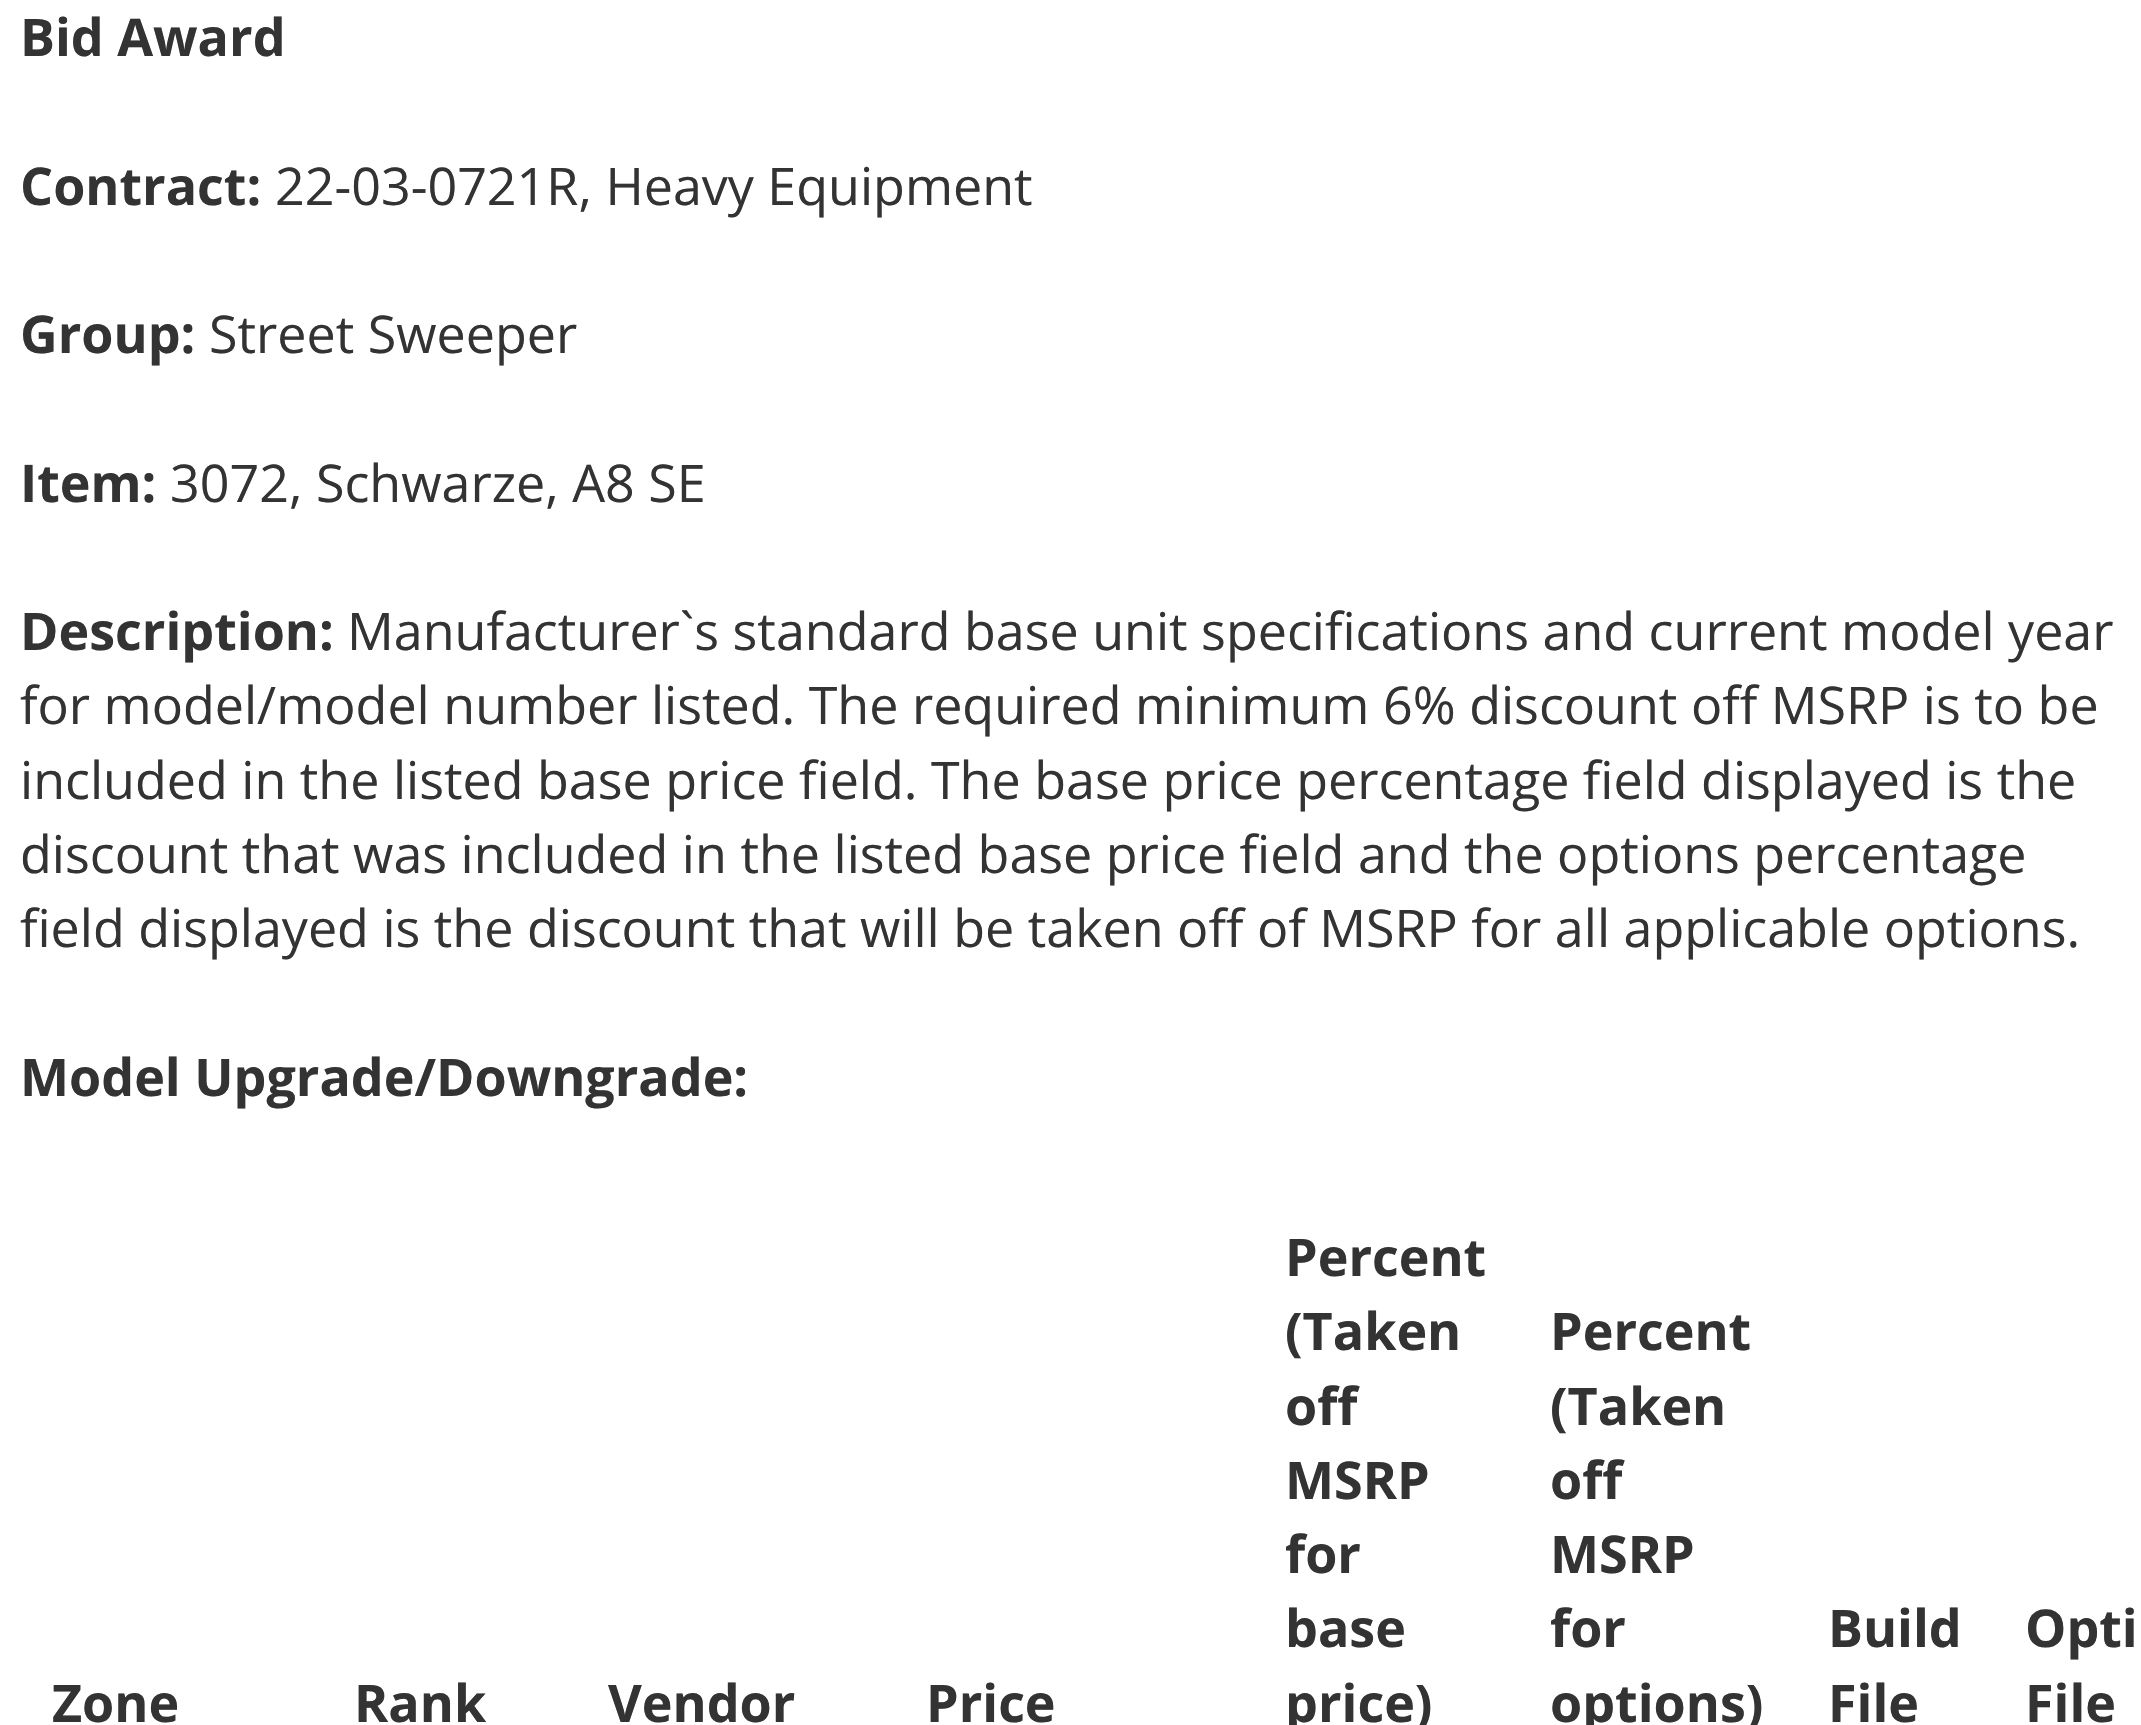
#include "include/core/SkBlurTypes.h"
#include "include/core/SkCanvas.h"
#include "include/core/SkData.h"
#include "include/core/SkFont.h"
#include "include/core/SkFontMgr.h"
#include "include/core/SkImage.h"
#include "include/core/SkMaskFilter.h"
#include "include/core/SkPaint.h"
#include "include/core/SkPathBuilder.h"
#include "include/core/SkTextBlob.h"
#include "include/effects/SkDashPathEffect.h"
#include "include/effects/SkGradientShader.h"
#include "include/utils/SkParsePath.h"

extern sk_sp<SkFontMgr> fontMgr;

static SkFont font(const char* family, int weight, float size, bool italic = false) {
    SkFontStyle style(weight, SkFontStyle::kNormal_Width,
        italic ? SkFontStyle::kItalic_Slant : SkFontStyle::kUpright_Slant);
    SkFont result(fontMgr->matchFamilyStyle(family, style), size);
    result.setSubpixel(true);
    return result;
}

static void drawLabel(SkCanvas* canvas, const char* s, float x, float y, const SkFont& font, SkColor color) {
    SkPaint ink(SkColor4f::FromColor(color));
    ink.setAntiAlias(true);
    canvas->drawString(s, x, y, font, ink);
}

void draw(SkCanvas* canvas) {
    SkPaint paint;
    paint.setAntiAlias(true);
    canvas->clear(0xFFFFFFFF);
    SkFont font1 = font("Open Sans", 700, 52);
    drawLabel(canvas, "Bid Award", 20, 56, font1, 0xFF333333);
    drawLabel(canvas, "Contract:", 20, 205, font1, 0xFF333333);
    SkFont font2 = font("Open Sans", 400, 52);
    drawLabel(canvas, "22-03-0721R, Heavy Equipment", 275, 205, font2, 0xFF333333);
    drawLabel(canvas, "Group:", 20, 353, font1, 0xFF333333);
    drawLabel(canvas, "Street Sweeper", 209, 353, font2, 0xFF333333);
    drawLabel(canvas, "Item:", 20, 502, font1, 0xFF333333);
    drawLabel(canvas, "3072, Schwarze, A8 SE", 170, 502, font2, 0xFF333333);
    drawLabel(canvas, "Description:", 20, 650, font1, 0xFF333333);
    drawLabel(canvas, "Manufacturer`s standard base unit specifications and current model year", 347, 650, font2, 0xFF333333);
    drawLabel(canvas, "for model/model number listed. The required minimum 6% discount off MSRP is to be", 20, 724, font2, 0xFF333333);
    drawLabel(canvas, "included in the listed base price field. The base price percentage field displayed is the", 20, 799, font2, 0xFF333333);
    drawLabel(canvas, "discount that was included in the listed base price field and the options percentage", 20, 873, font2, 0xFF333333);
    drawLabel(canvas, "field displayed is the discount that will be taken off of MSRP for all applicable options.", 20, 947, font2, 0xFF333333);
    drawLabel(canvas, "Model Upgrade/Downgrade:", 20, 1096, font1, 0xFF333333);
    drawLabel(canvas, "Zone", 52, 1722, font1, 0xFF333333);
    drawLabel(canvas, "Rank", 354, 1722, font1, 0xFF333333);
    drawLabel(canvas, "Vendor", 608, 1722, font1, 0xFF333333);
    drawLabel(canvas, "Price", 926, 1722, font1, 0xFF333333);
    drawLabel(canvas, "Percent", 1285, 1276, font1, 0xFF333333);
    drawLabel(canvas, "(Taken", 1285, 1350, font1, 0xFF333333);
    drawLabel(canvas, "off", 1285, 1425, font1, 0xFF333333);
    drawLabel(canvas, "MSRP", 1285, 1499, font1, 0xFF333333);
    drawLabel(canvas, "for", 1285, 1573, font1, 0xFF333333);
    drawLabel(canvas, "base", 1285, 1647, font1, 0xFF333333);
    drawLabel(canvas, "price)", 1285, 1722, font1, 0xFF333333);
    drawLabel(canvas, "Percent", 1550, 1350, font1, 0xFF333333);
    drawLabel(canvas, "(Taken", 1550, 1425, font1, 0xFF333333);
    drawLabel(canvas, "off", 1550, 1499, font1, 0xFF333333);
    drawLabel(canvas, "MSRP", 1550, 1573, font1, 0xFF333333);
    drawLabel(canvas, "for", 1550, 1647, font1, 0xFF333333);
    drawLabel(canvas, "options)", 1550, 1722, font1, 0xFF333333);
    drawLabel(canvas, "Build", 1828, 1647, font1, 0xFF333333);
    drawLabel(canvas, "File", 1828, 1722, font1, 0xFF333333);
    drawLabel(canvas, "Opti", 2025, 1647, font1, 0xFF333333);
    drawLabel(canvas, "File", 2025, 1722, font1, 0xFF333333);
}
